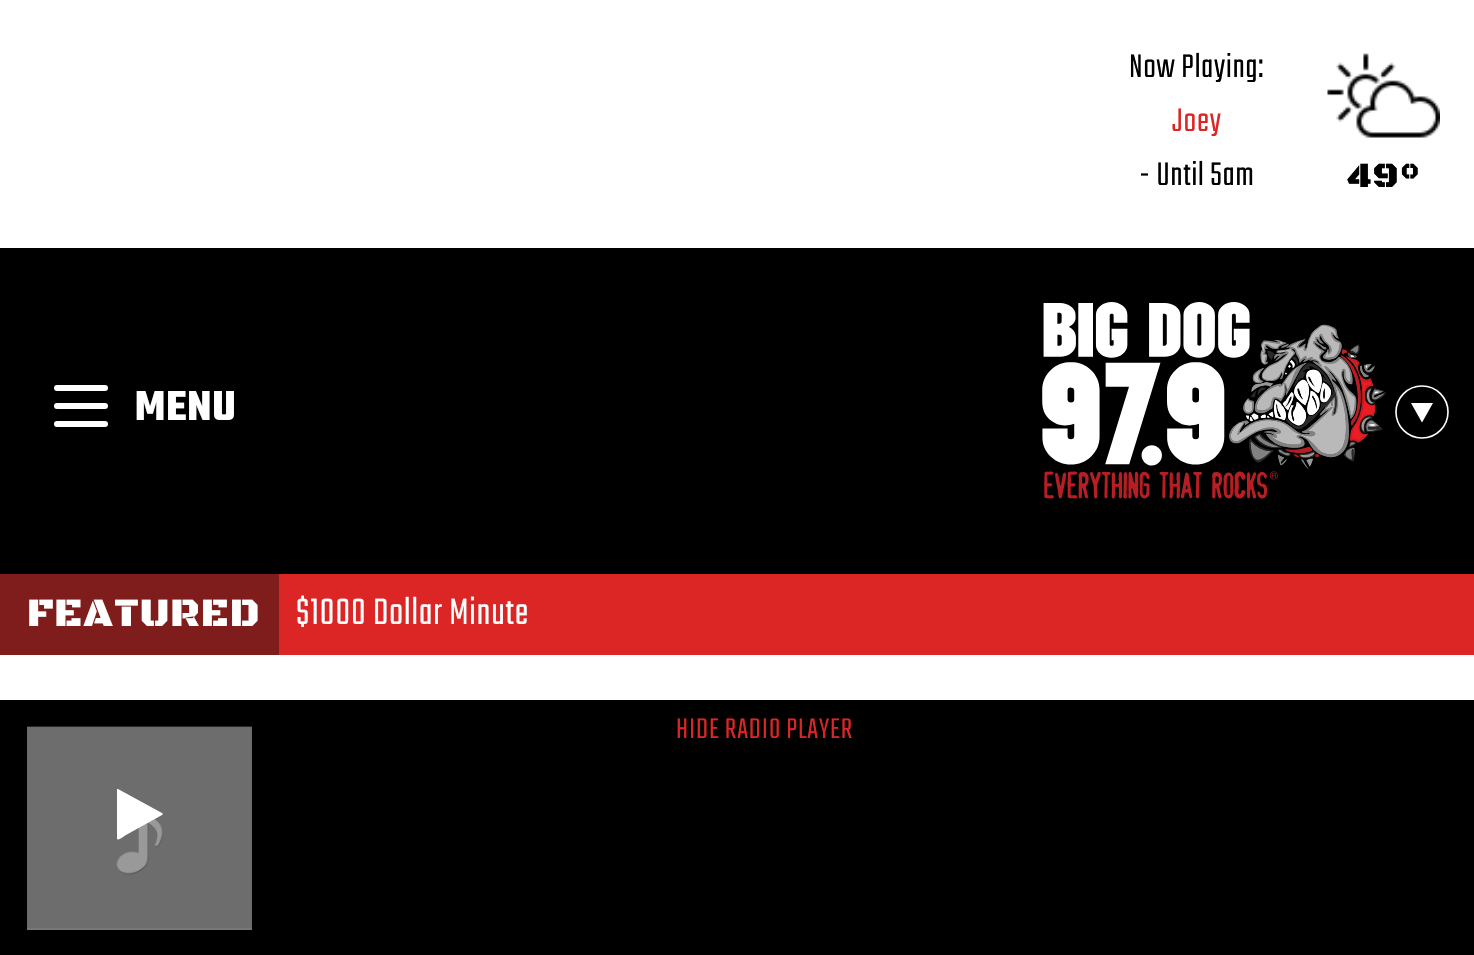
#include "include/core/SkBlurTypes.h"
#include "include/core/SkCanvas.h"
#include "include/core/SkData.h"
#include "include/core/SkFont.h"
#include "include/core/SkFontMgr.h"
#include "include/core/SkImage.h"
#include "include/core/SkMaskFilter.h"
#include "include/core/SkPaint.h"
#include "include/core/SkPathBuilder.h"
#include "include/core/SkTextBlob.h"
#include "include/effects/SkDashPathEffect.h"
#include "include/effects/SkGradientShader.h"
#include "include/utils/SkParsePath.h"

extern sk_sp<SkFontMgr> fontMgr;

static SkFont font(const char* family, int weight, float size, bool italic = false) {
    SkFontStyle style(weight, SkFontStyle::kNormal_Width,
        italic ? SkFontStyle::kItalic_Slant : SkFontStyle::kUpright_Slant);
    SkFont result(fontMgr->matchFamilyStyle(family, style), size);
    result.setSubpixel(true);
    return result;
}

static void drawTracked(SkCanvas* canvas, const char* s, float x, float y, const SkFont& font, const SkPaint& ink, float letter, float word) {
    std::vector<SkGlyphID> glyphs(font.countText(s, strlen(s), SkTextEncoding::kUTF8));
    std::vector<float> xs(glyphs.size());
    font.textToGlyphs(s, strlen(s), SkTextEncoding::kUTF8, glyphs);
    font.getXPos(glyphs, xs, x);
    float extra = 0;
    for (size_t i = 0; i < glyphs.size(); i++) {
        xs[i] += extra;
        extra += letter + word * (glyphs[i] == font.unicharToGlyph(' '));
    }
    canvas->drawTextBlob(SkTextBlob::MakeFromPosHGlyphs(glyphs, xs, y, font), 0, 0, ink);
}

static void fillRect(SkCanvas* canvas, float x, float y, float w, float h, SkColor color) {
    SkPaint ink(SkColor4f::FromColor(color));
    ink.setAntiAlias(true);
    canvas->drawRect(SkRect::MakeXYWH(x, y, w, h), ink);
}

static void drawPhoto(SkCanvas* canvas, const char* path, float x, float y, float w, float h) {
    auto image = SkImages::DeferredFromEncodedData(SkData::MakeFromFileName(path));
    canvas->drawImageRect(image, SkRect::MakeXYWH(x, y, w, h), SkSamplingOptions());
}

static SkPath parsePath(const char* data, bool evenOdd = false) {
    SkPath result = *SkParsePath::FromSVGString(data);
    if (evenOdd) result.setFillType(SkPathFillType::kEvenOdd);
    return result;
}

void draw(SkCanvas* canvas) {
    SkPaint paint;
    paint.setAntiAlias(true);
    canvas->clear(0xFFFFFFFF);
    SkFont font1 = font("Teko", 300, 36);
    paint.setColor(0xFF000000);
    drawTracked(canvas, "Now Playing:", 1129, 77, font1, paint, 0.9f, 0);
    paint.setColor(0xFFDC2626);
    drawTracked(canvas, "Joey", 1172, 131, font1, paint, 0.9f, 0);
    paint.setColor(0xFF000000);
    drawTracked(canvas, "- Until 5am", 1139, 185, font1, paint, 0.9f, 0);
    drawPhoto(canvas, "assets/img1.png", 1327, 53, 113, 85);
    SkFont font2 = font("Black Ops One", 900, 36);
    drawTracked(canvas, "49°", 1347, 187, font2, paint, 0.9f, 0);
    fillRect(canvas, 0, 248, 1474, 326, 0xFF000000);
    paint.setStroke(true);
    paint.setStrokeWidth(6);
    paint.setStrokeCap(SkPaint::kRound_Cap);
    paint.setStrokeJoin(SkPaint::kRound_Join);
    paint.setColor(0xFFFFFFFF);
    canvas->drawPath(parsePath("M57 388H105M57 406H105M57 424H105"), paint);
    SkFont font3 = font("Teko", 700, 45);
    paint.setStroke(false);
    drawTracked(canvas, "MENU", 135, 420, font3, paint, 1, 0);
    drawPhoto(canvas, "assets/img2.png", 1042, 302, 344, 197);
    canvas->drawPath(parsePath("M1422 422.5L1411 403H1433Z"), paint);
    paint.setStroke(true);
    paint.setStrokeWidth(1.6f);
    paint.setStrokeCap(SkPaint::kButt_Cap);
    paint.setStrokeJoin(SkPaint::kMiter_Join);
    canvas->drawCircle(1422, 412, 26, paint);
    fillRect(canvas, 279, 574, 1195, 81, 0xFFDC2626);
    fillRect(canvas, 0, 574, 279, 81, 0xFF7F1D1D);
    SkFont font4 = font("Black Ops One", 900, 40.5f);
    paint.setStroke(false);
    drawTracked(canvas, "FEATURED", 27, 626, font4, paint, 1, 0);
    SkFont font5 = font("Teko", 300, 40.5f);
    drawTracked(canvas, "$1000 Dollar Minute", 296, 624, font5, paint, 1, 0);
    fillRect(canvas, 0, 700, 1474, 255, 0xFF000000);
    drawPhoto(canvas, "assets/img3.png", 27, 726, 225, 204);
    drawPhoto(canvas, "assets/img4.png", 27, 726, 225, 204);
    canvas->drawPath(parsePath("M162 815L126 835C125 835 119 841 117 839V789H118L162 813L163 814Z"), paint);
    SkFont font6 = font("Teko", 300, 31.5f);
    paint.setColor(0xFFDC2626);
    drawTracked(canvas, "HIDE RADIO PLAYER", 676, 738, font6, paint, 0.9f, 0);
}
